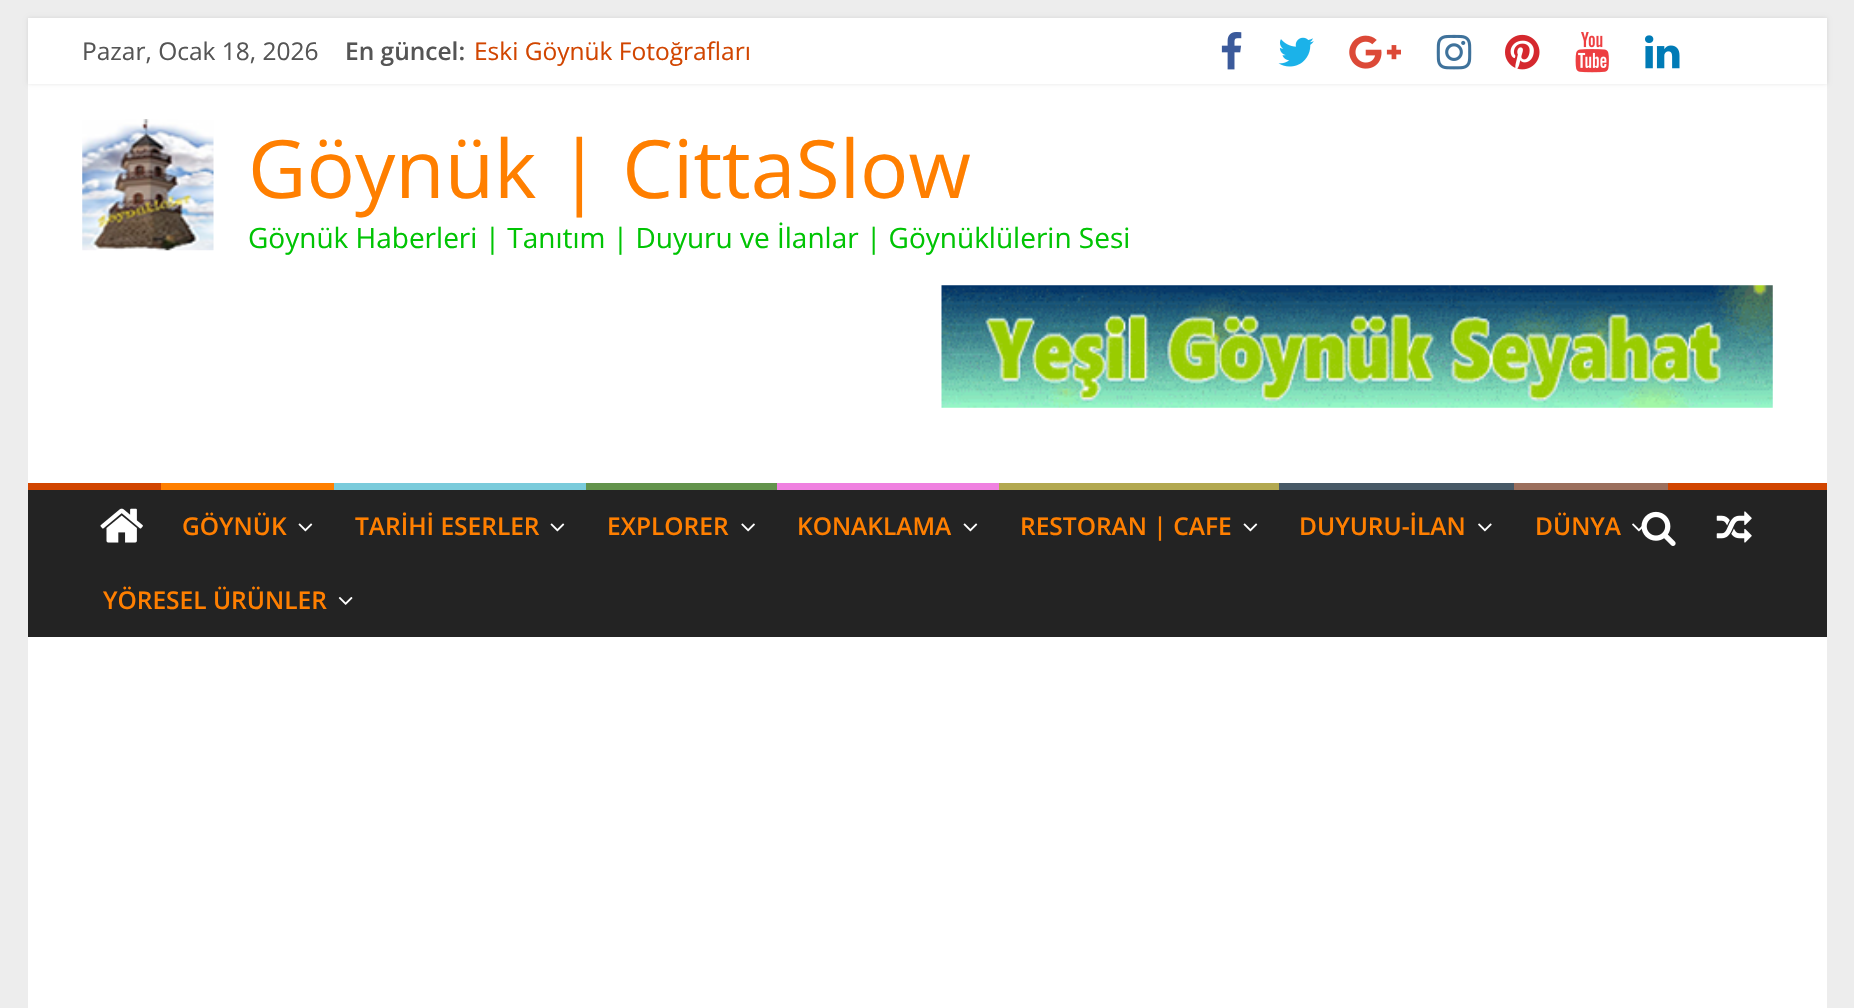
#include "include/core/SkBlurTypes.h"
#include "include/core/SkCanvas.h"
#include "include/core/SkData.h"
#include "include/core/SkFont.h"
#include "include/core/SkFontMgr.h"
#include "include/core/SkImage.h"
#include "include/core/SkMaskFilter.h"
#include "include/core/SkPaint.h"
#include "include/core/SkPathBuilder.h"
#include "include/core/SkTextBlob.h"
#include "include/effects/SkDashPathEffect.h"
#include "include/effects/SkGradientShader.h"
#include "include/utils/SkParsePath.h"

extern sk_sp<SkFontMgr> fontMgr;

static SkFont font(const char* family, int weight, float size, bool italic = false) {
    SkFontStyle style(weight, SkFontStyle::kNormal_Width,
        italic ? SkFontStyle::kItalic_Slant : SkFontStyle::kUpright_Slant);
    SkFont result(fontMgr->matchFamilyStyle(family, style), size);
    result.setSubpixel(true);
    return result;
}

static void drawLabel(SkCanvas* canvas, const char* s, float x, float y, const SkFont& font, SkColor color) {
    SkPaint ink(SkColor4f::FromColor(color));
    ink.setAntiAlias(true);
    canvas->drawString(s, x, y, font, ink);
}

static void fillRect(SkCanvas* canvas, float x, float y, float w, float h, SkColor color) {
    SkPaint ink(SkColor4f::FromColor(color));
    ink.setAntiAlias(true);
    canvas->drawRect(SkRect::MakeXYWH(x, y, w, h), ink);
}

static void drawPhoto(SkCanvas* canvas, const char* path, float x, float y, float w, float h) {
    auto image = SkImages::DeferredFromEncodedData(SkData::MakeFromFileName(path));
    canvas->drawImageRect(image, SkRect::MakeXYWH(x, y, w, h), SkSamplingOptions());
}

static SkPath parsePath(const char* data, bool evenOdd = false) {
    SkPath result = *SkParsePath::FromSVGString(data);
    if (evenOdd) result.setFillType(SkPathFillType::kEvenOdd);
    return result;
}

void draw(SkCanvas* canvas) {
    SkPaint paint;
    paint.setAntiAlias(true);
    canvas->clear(0xFFEDEDED);
    fillRect(canvas, 28, 18, 1799, 990, 0xFFFFFFFF);
    canvas->save();
    canvas->clipPath(parsePath("M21 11H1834V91H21ZM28 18H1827V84H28Z", true), true);
    paint.setColor(0x1A000000);
    paint.setMaskFilter(SkMaskFilter::MakeBlur(kNormal_SkBlurStyle, 2));
    canvas->drawRect(SkRect::MakeXYWH(28, 18, 1799, 66), paint);
    paint.setMaskFilter(nullptr);
    canvas->restore();
    SkFont font1 = font("Open Sans", 400, 24.5f);
    drawLabel(canvas, "Pazar, Ocak 18, 2026", 82, 60, font1, 0xFF555555);
    SkFont font2 = font("Open Sans", 600, 24.5f);
    drawLabel(canvas, "En güncel:", 345, 60, font2, 0xFF555555);
    drawLabel(canvas, "Eski Göynük Fotoğrafları", 474, 60, font1, 0xFFD14500);
    drawPhoto(canvas, "assets/img1.png", 1221, 32, 21, 38);
    drawPhoto(canvas, "assets/img2.png", 1278, 37, 36, 30);
    drawPhoto(canvas, "assets/img3.png", 1349, 35, 52, 34);
    drawPhoto(canvas, "assets/img4.png", 1436, 34, 36, 36);
    drawPhoto(canvas, "assets/img5.png", 1505, 34, 35, 36);
    drawPhoto(canvas, "assets/img6.png", 1575, 32, 34, 41);
    drawPhoto(canvas, "assets/img7.png", 1645, 35, 35, 34);
    drawPhoto(canvas, "assets/img8.png", 82, 119, 132, 132);
    SkFont font3 = font("Open Sans", 400, 80.5f);
    drawLabel(canvas, "Göynük | CittaSlow", 248, 198, font3, 0xFFFF7F00);
    SkFont font4 = font("Open Sans", 400, 28);
    drawLabel(canvas, "Göynük Haberleri | Tanıtım | Duyuru ve İlanlar | Göynüklülerin Sesi", 248, 248, font4, 0xFF00C403);
    drawPhoto(canvas, "assets/img9.png", 941, 285, 832, 123);
    fillRect(canvas, 28, 490, 1799, 147, 0xFF232323);
    fillRect(canvas, 28, 483, 1799, 7, 0xFFD14500);
    drawPhoto(canvas, "assets/img10.png", 100, 508, 43, 35);
    drawPhoto(canvas, "assets/img16.png", 1632, 523, 10, 9);
    drawPhoto(canvas, "assets/img11.png", 1641, 511, 35, 35);
    drawPhoto(canvas, "assets/img12.png", 1716, 511, 36, 32);
    fillRect(canvas, 161, 483, 173, 7, 0xFFFF7F00);
    drawLabel(canvas, "GÖYNÜK", 182, 535, font2, 0xFFFF7F00);
    drawPhoto(canvas, "assets/img13.png", 298, 523, 15, 9);
    fillRect(canvas, 334, 483, 252, 7, 0xFF7ACBDB);
    drawLabel(canvas, "TARİHİ ESERLER", 355, 535, font2, 0xFFFF7F00);
    drawPhoto(canvas, "assets/img13.png", 550, 523, 15, 9);
    fillRect(canvas, 586, 483, 191, 7, 0xFF63934C);
    drawLabel(canvas, "EXPLORER", 607, 535, font2, 0xFFFF7F00);
    drawPhoto(canvas, "assets/img14.png", 741, 523, 14, 9);
    fillRect(canvas, 777, 483, 222, 7, 0xFFEF81E0);
    drawLabel(canvas, "KONAKLAMA", 797, 535, font2, 0xFFFF7F00);
    drawPhoto(canvas, "assets/img13.png", 963, 523, 15, 9);
    fillRect(canvas, 999, 483, 280, 7, 0xFFB2A850);
    drawLabel(canvas, "RESTORAN | CAFE", 1020, 535, font2, 0xFFFF7F00);
    drawPhoto(canvas, "assets/img13.png", 1243, 523, 15, 9);
    fillRect(canvas, 1279, 483, 235, 7, 0xFF475966);
    drawLabel(canvas, "DUYURU-İLAN", 1299, 535, font2, 0xFFFF7F00);
    drawPhoto(canvas, "assets/img15.png", 1478, 523, 14, 9);
    fillRect(canvas, 1514, 483, 154, 7, 0xFF9B6F5D);
    drawLabel(canvas, "DÜNYA", 1535, 535, font2, 0xFFFF7F00);
    drawLabel(canvas, "YÖRESEL ÜRÜNLER", 103, 609, font2, 0xFFFF7F00);
    drawPhoto(canvas, "assets/img17.png", 338, 597, 15, 8);
}
